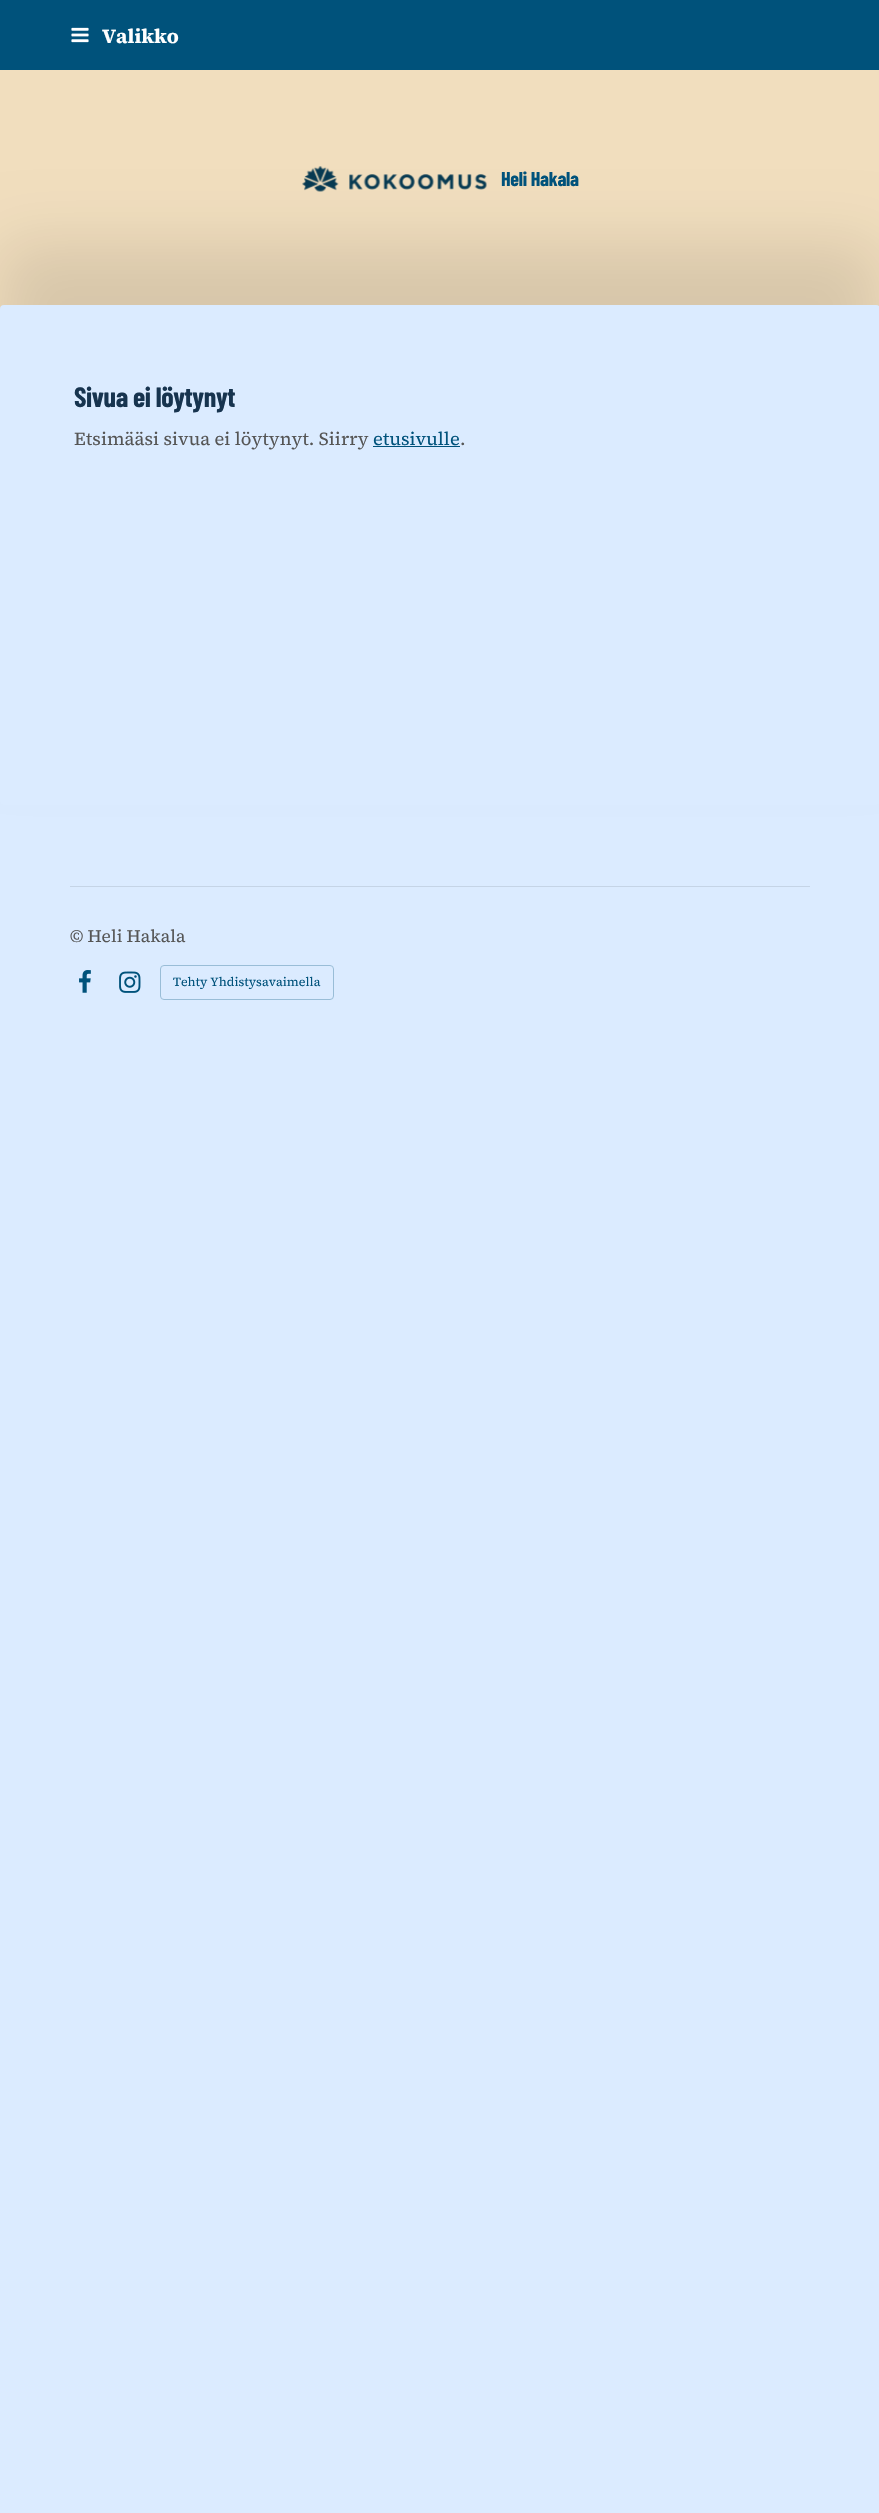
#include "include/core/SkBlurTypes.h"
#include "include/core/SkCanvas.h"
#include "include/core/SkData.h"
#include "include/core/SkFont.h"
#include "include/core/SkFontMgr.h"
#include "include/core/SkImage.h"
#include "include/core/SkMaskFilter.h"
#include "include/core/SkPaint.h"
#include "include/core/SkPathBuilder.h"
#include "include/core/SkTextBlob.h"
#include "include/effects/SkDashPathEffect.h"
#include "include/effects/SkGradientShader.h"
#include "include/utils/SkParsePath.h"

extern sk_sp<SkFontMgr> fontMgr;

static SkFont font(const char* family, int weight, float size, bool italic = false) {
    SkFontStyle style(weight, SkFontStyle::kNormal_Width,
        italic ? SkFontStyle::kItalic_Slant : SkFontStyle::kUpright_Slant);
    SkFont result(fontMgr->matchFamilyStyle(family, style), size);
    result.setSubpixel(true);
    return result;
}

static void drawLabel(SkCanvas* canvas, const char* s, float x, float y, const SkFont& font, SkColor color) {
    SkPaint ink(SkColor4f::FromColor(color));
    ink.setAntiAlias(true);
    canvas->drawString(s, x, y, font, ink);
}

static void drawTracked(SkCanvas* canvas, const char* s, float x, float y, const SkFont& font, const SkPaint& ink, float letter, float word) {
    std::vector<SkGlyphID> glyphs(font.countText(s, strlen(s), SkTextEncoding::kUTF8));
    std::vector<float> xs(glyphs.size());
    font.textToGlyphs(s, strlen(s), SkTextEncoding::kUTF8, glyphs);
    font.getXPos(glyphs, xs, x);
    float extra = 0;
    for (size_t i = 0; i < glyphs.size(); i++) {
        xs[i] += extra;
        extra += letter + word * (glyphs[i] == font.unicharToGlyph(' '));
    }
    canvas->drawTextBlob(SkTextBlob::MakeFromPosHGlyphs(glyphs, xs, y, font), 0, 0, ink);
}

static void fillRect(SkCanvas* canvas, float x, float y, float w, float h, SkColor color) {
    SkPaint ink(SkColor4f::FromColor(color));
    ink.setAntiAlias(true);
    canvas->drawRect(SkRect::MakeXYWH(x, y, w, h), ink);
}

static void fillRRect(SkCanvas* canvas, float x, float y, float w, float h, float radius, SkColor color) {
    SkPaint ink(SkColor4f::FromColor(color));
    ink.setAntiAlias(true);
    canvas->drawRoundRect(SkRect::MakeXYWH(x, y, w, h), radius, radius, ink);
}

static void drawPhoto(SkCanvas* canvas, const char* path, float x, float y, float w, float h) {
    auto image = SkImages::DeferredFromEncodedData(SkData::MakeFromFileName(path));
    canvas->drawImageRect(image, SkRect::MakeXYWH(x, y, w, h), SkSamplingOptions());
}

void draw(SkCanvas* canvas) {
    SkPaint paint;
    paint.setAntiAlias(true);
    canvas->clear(0xFFDBEBFF);
    fillRect(canvas, 0, 0, 879, 70, 0xFF00527B);
    drawPhoto(canvas, "assets/img1.png", 71, 27, 18, 16);
    SkFont font1 = font("Source Serif 4", 700, 20);
    drawLabel(canvas, "Valikko", 102, 43, font1, 0xFFFFFFFF);
    fillRect(canvas, 0, 70, 879, 239, 0xFFF1DEBE);
    paint.setColor(0x1A000000);
    paint.setMaskFilter(SkMaskFilter::MakeBlur(kNormal_SkBlurStyle, 31));
    canvas->drawRoundRect(SkRect::MakeXYWH(0, 243, 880, 500), 4, 4, paint);
    paint.setMaskFilter(nullptr);
    drawPhoto(canvas, "assets/img2.png", 302, 166, 185, 26);
    SkFont font2 = font("Barlow Condensed", 700, 20);
    paint.setColor(0xFF00527B);
    drawTracked(canvas, "Heli Hakala", 501, 186, font2, paint, -0.25f, 0);
    fillRRect(canvas, 0, 305, 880, 500, 4, 0xFFDBEBFF);
    SkFont font3 = font("Barlow Condensed", 700, 28);
    paint.setColor(0xFF17344F);
    drawTracked(canvas, "Sivua ei löytynyt", 74, 407, font3, paint, -0.4f, 0);
    SkFont font4 = font("Source Serif 4", 400, 18.4f);
    drawLabel(canvas, "Etsimääsi sivua ei löytynyt. Siirry", 74, 445, font4, 0xFF555555);
    drawLabel(canvas, "etusivulle", 373, 445, font4, 0xFF00527B);
    fillRect(canvas, 373, 446, 87, 1, 0xFF00527B);
    drawLabel(canvas, ".", 460, 445, font4, 0xFF555555);
    fillRect(canvas, 70, 886, 740, 1, 0xFFC5D4E6);
    SkFont font5 = font("Source Serif 4", 400, 17.5f);
    drawLabel(canvas, "© Heli Hakala", 70, 942, font5, 0xFF555555);
    drawPhoto(canvas, "assets/img3.png", 79, 970, 12, 23);
    drawPhoto(canvas, "assets/img4.png", 119, 971, 22, 22);
    paint.setStroke(true);
    paint.setStrokeWidth(1);
    paint.setColor(0xFF99BDD7);
    canvas->drawRoundRect(SkRect::MakeXYWH(160.5f, 965.5f, 173, 34), 3.5f, 3.5f, paint);
    SkFont font6 = font("Source Serif 4", 400, 12.5f);
    drawLabel(canvas, "Tehty Yhdistysavaimella", 173, 986, font6, 0xFF00527B);
}
